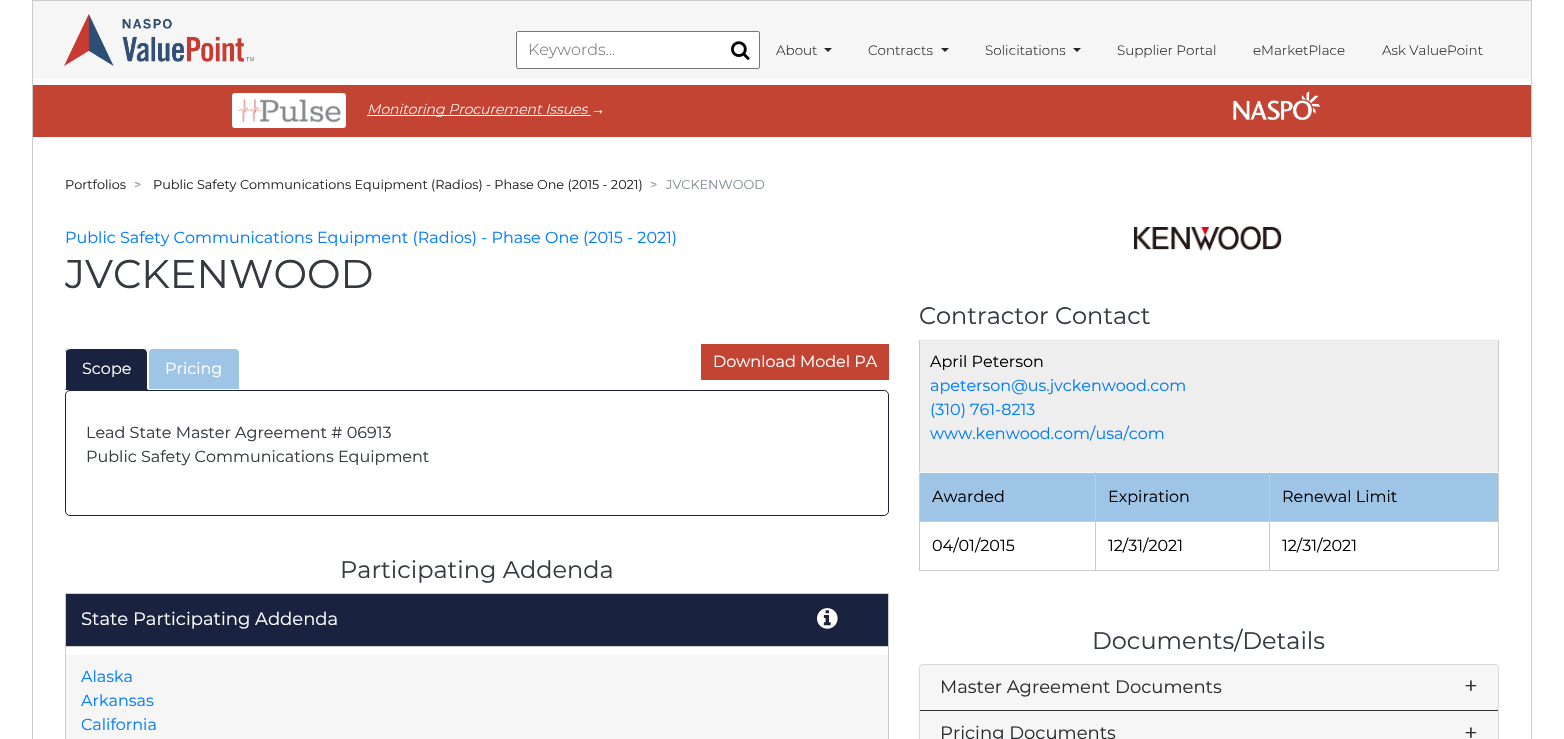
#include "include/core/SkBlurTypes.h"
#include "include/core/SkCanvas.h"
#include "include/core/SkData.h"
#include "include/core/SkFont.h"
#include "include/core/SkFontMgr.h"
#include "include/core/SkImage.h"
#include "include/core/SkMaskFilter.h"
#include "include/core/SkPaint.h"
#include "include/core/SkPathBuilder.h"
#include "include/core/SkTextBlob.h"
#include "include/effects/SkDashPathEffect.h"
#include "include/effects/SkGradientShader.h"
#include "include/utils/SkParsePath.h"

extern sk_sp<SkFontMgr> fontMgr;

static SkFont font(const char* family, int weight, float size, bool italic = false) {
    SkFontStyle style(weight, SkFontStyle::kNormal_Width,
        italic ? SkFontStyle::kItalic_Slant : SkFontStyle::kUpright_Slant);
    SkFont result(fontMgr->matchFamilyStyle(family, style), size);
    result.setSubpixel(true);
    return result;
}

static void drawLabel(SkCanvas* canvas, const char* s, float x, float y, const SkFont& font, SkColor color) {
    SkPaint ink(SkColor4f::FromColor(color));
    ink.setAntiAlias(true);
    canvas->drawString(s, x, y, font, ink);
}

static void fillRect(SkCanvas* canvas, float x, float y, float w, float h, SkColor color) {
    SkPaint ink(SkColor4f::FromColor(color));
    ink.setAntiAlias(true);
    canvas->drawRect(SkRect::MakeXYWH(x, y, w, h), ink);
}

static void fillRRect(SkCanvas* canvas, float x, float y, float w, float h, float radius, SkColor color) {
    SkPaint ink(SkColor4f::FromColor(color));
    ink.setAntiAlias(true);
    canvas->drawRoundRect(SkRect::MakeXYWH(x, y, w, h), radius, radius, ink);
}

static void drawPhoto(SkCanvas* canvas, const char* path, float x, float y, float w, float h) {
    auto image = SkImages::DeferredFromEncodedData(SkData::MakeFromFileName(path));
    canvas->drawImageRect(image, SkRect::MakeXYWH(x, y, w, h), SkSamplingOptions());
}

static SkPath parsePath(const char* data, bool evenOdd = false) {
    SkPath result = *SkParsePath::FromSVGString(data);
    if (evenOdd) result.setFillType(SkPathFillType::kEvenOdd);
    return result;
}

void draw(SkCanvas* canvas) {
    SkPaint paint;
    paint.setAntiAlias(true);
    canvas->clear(0xFFFFFFFF);
    fillRect(canvas, 33, 85, 1498, 52, 0xFFC34432);
    paint.setStroke(true);
    paint.setStrokeWidth(1);
    paint.setColor(0xFFCCCCCC);
    canvas->drawRect(SkRect::MakeXYWH(32.5f, 0.5f, 1499, 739), paint);
    fillRect(canvas, 33, 1, 1498, 78, 0xFFF6F6F6);
    drawPhoto(canvas, "assets/img1.png", 64, 14, 190, 52);
    paint.setStroke(false);
    paint.setColor(0xFFFFFFFF);
    canvas->drawRoundRect(SkRect::MakeXYWH(516.5f, 31.5f, 243, 37), 1.5f, 1.5f, paint);
    paint.setStroke(true);
    paint.setColor(0xFF767676);
    canvas->drawRoundRect(SkRect::MakeXYWH(516.5f, 31.5f, 243, 37), 1.5f, 1.5f, paint);
    SkFont font1 = font("Montserrat", 300, 16);
    drawLabel(canvas, "Keywords...", 528, 55, font1, 0xFF757575);
    drawPhoto(canvas, "assets/img2.png", 731, 41, 19, 19);
    SkFont font2 = font("Montserrat", 300, 13.5f);
    drawLabel(canvas, "About", 776, 55, font2, 0xFF232526);
    paint.setStroke(false);
    paint.setColor(0xFF232526);
    canvas->drawPath(parsePath("M824 48H832L828 52Z"), paint);
    drawLabel(canvas, "Contracts", 868, 55, font2, 0xFF232526);
    canvas->drawPath(parsePath("M941 48H949L945 52Z"), paint);
    drawLabel(canvas, "Solicitations", 985, 55, font2, 0xFF232526);
    canvas->drawPath(parsePath("M1073 48H1081L1077 52Z"), paint);
    drawLabel(canvas, "Supplier Portal", 1117, 55, font2, 0xFF232526);
    drawLabel(canvas, "eMarketPlace", 1253, 55, font2, 0xFF232526);
    drawLabel(canvas, "Ask ValuePoint", 1382, 55, font2, 0xFF232526);
    fillRRect(canvas, 232, 93, 114, 35, 3, 0xFFFFFFFF);
    drawPhoto(canvas, "assets/img3.png", 238, 98, 103, 25);
    fillRect(canvas, 367, 115, 224, 1, 0xFFFFFFFF);
    SkFont font3 = font("Montserrat", 300, 14, true);
    drawLabel(canvas, "Monitoring Procurement Issues", 367, 114, font3, 0xFFFFFFFF);
    SkFont font4 = font("Liberation Sans", 400, 14);
    drawLabel(canvas, "→", 591, 114, font4, 0xFFFFFFFF);
    drawPhoto(canvas, "assets/img4.png", 1233, 91, 88, 29);
    SkFont font5 = font("Montserrat", 400, 12.8f);
    drawLabel(canvas, "Portfolios", 65, 189, font5, 0xFF232526);
    drawLabel(canvas, ">", 134, 189, font5, 0xFF868E96);
    drawLabel(canvas, "Public Safety Communications Equipment (Radios) - Phase One (2015 - 2021)", 153, 189, font5, 0xFF232526);
    drawLabel(canvas, ">", 650, 189, font5, 0xFF868E96);
    drawLabel(canvas, "JVCKENWOOD", 666, 189, font5, 0xFF868E96);
    SkFont font6 = font("Montserrat", 400, 16);
    drawLabel(canvas, "Public Safety Communications Equipment (Radios) - Phase One (2015 - 2021)", 65, 243, font6, 0xFF007BFF);
    SkFont font7 = font("Montserrat", 400, 40);
    drawLabel(canvas, "JVCKENWOOD", 65, 288, font7, 0xFF343A40);
    fillRect(canvas, 240, 389, 649, 1, 0xFFF8F9FA);
    paint.setColor(0xFF19223E);
    canvas->drawPath(parsePath("M70 348H143C146 348 148 350 148 353V390H65V353C65 350 67 348 70 348Z"), paint);
    paint.setColor(0xFFFFFFFF);
    canvas->drawPath(parsePath("M70 348C68 348 67 348 66 349L67 350L70 349H143L146 350L147 349C146 348 144 348 143 348Z"), paint);
    canvas->drawPath(parsePath("M148 390V353C148 352 148 350 147 349L146 350C146 351 147 352 147 353V389Z"), paint);
    paint.setColor(0xFF19223E);
    canvas->drawPath(parsePath("M148 390L147 389H66L65 390Z"), paint);
    paint.setColor(0xFFFFFFFF);
    canvas->drawPath(parsePath("M65 390L66 389V353C66 352 66 351 67 350L66 349C66 350 65 352 65 353Z"), paint);
    drawLabel(canvas, "Scope", 82, 374, font6, 0xFFFFFFFF);
    paint.setColor(0xFF9EC5E6);
    canvas->drawPath(parsePath("M153 348.5H235C237.5 348.5 239.5 350.5 239.5 353V389.5H148.5V353C148.5 350.5 150.5 348.5 153 348.5Z"), paint);
    paint.setStroke(true);
    paint.setColor(0xFFFFFFFF);
    canvas->drawPath(parsePath("M153 348.5H235C237.5 348.5 239.5 350.5 239.5 353V389.5H148.5V353C148.5 350.5 150.5 348.5 153 348.5Z"), paint);
    drawLabel(canvas, "Pricing", 165, 374, font6, 0xFFFFFFFF);
    fillRect(canvas, 701, 344, 188, 36, 0xFFC34432);
    drawLabel(canvas, "Download Model PA", 713, 367, font6, 0xFFFFFFFF);
    paint.setColor(0xFF19223E);
    canvas->drawRoundRect(SkRect::MakeXYWH(65.5f, 390.5f, 823, 125), 4.5f, 4.5f, paint);
    drawLabel(canvas, "Lead State Master Agreement # 06913", 86, 438, font6, 0xFF343A40);
    drawLabel(canvas, "Public Safety Communications Equipment", 86, 462, font6, 0xFF343A40);
    SkFont font8 = font("Montserrat", 400, 24);
    drawLabel(canvas, "Participating Addenda", 340, 578, font8, 0xFF343A40);
    fillRect(canvas, 65, 593, 824, 1, 0xFFCCCCCC);
    fillRect(canvas, 888, 593, 1, 146, 0xFFCCCCCC);
    fillRect(canvas, 65, 593, 1, 146, 0xFFCCCCCC);
    fillRect(canvas, 66, 594, 822, 52, 0xFF19223E);
    fillRect(canvas, 66, 646, 822, 1, 0xFFCCCCCC);
    SkFont font9 = font("Montserrat", 400, 18);
    drawLabel(canvas, "State Participating Addenda", 81, 625, font9, 0xFFFFFFFF);
    drawPhoto(canvas, "assets/img5.png", 817, 608, 21, 21);
    fillRect(canvas, 66, 655, 822, 84, 0xFFF6F6F6);
    drawLabel(canvas, "Alaska", 81, 682, font6, 0xFF007BFF);
    drawLabel(canvas, "Arkansas", 81, 706, font6, 0xFF007BFF);
    drawLabel(canvas, "California", 81, 730, font6, 0xFF007BFF);
    drawPhoto(canvas, "assets/img6.png", 1134, 226, 148, 25);
    drawLabel(canvas, "Contractor Contact", 919, 324, font8, 0xFF343A40);
    fillRect(canvas, 1498, 339, 1, 232, 0xFFCCCCCC);
    fillRect(canvas, 919, 570, 580, 1, 0xFFCCCCCC);
    fillRect(canvas, 919, 339, 1, 232, 0xFFCCCCCC);
    fillRect(canvas, 920, 340, 578, 132, 0xFFEEEEEE);
    fillRect(canvas, 919, 339, 580, 1, 0xFFF8F9FA);
    drawLabel(canvas, "April Peterson", 930, 367, font6, 0xFF000000);
    drawLabel(canvas, "apeterson@us.jvckenwood.com", 930, 391, font6, 0xFF007BFF);
    drawLabel(canvas, "(310) 761-8213", 930, 415, font6, 0xFF007BFF);
    drawLabel(canvas, "www.kenwood.com/usa/com", 930, 439, font6, 0xFF007BFF);
    fillRect(canvas, 920, 473, 578, 48, 0xFF9EC5E6);
    fillRect(canvas, 919, 472, 580, 1, 0xFFF8F9FA);
    fillRect(canvas, 1269, 521, 1, 50, 0xFFCCCCCC);
    fillRect(canvas, 1269, 521, 230, 1, 0xFFCCCCCC);
    fillRect(canvas, 1269, 472, 1, 50, 0xFFCCCCCC);
    fillRect(canvas, 1095, 521, 1, 50, 0xFFCCCCCC);
    fillRect(canvas, 1095, 521, 175, 1, 0xFFCCCCCC);
    fillRect(canvas, 1095, 472, 1, 50, 0xFFCCCCCC);
    fillRect(canvas, 919, 521, 177, 1, 0xFFCCCCCC);
    drawLabel(canvas, "Awarded", 932, 502, font6, 0xFF000000);
    drawLabel(canvas, "Expiration", 1108, 502, font6, 0xFF000000);
    drawLabel(canvas, "Renewal Limit", 1282, 502, font6, 0xFF000000);
    drawLabel(canvas, "04/01/2015", 932, 551, font6, 0xFF000000);
    drawLabel(canvas, "12/31/2021", 1108, 551, font6, 0xFF000000);
    drawLabel(canvas, "12/31/2021", 1282, 551, font6, 0xFF000000);
    drawLabel(canvas, "Documents/Details", 1092, 649, font8, 0xFF343A40);
    fillRRect(canvas, 919, 664, 580, 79, 4, 0xFFF6F6F6);
    paint.setColor(0x1F000000);
    canvas->drawRoundRect(SkRect::MakeXYWH(919.5f, 664.5f, 579, 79), 3.5f, 3.5f, paint);
    fillRect(canvas, 920, 710, 578, 1, 0xFF333333);
    drawLabel(canvas, "Master Agreement Documents", 940, 693, font9, 0xFF292B2C);
    drawLabel(canvas, "+", 1464, 694, font8, 0xFF333333);
    drawLabel(canvas, "Pricing Documents", 940, 739, font9, 0xFF292B2C);
    drawLabel(canvas, "+", 1464, 741, font8, 0xFF333333);
}
